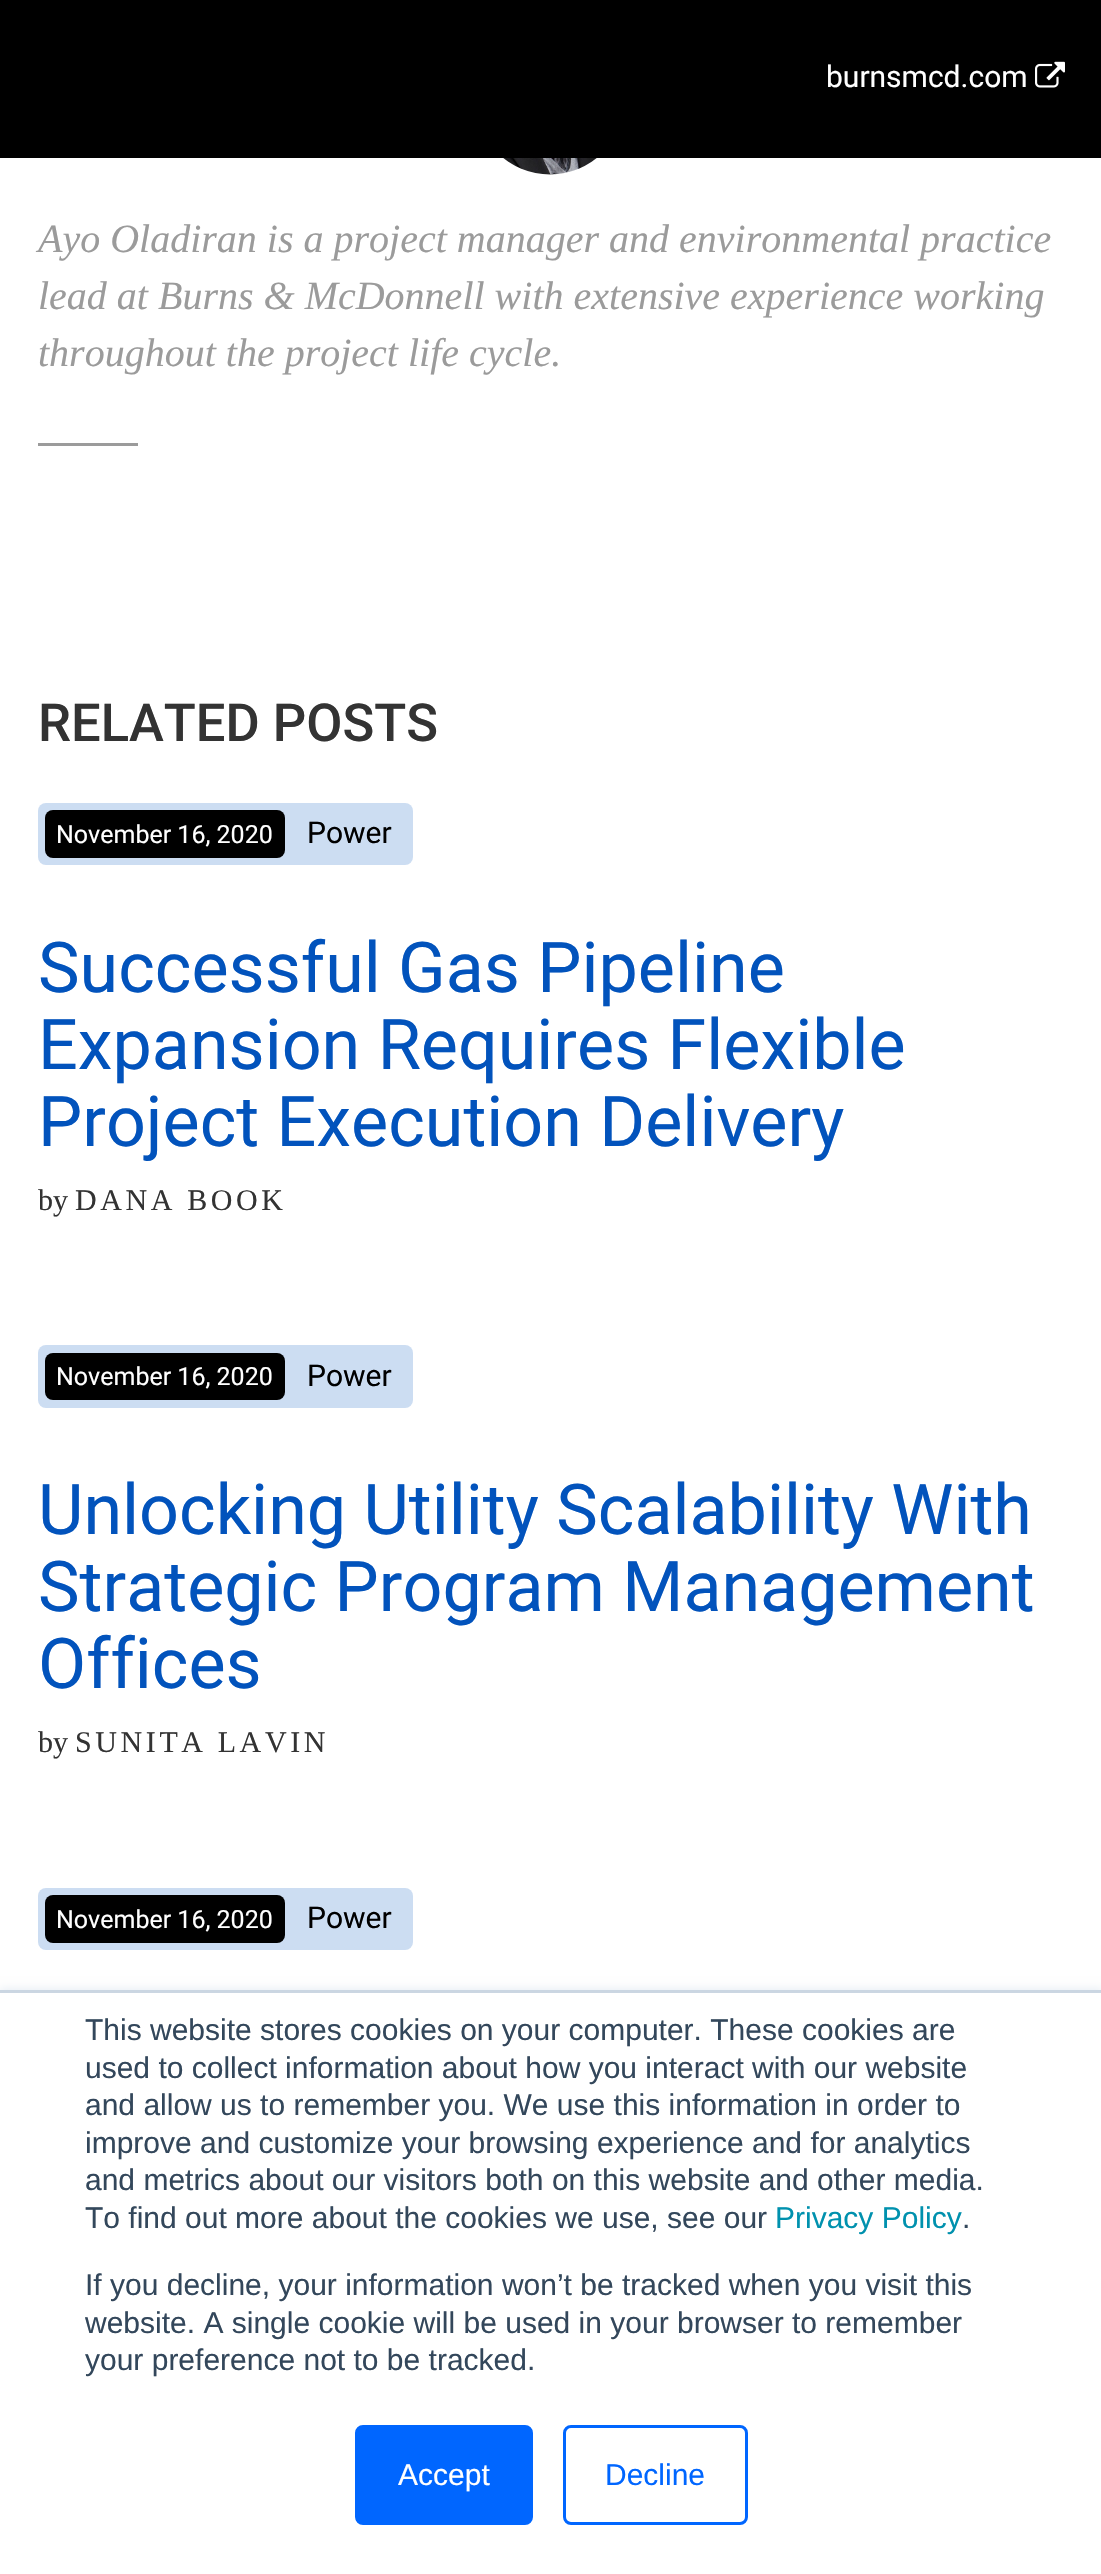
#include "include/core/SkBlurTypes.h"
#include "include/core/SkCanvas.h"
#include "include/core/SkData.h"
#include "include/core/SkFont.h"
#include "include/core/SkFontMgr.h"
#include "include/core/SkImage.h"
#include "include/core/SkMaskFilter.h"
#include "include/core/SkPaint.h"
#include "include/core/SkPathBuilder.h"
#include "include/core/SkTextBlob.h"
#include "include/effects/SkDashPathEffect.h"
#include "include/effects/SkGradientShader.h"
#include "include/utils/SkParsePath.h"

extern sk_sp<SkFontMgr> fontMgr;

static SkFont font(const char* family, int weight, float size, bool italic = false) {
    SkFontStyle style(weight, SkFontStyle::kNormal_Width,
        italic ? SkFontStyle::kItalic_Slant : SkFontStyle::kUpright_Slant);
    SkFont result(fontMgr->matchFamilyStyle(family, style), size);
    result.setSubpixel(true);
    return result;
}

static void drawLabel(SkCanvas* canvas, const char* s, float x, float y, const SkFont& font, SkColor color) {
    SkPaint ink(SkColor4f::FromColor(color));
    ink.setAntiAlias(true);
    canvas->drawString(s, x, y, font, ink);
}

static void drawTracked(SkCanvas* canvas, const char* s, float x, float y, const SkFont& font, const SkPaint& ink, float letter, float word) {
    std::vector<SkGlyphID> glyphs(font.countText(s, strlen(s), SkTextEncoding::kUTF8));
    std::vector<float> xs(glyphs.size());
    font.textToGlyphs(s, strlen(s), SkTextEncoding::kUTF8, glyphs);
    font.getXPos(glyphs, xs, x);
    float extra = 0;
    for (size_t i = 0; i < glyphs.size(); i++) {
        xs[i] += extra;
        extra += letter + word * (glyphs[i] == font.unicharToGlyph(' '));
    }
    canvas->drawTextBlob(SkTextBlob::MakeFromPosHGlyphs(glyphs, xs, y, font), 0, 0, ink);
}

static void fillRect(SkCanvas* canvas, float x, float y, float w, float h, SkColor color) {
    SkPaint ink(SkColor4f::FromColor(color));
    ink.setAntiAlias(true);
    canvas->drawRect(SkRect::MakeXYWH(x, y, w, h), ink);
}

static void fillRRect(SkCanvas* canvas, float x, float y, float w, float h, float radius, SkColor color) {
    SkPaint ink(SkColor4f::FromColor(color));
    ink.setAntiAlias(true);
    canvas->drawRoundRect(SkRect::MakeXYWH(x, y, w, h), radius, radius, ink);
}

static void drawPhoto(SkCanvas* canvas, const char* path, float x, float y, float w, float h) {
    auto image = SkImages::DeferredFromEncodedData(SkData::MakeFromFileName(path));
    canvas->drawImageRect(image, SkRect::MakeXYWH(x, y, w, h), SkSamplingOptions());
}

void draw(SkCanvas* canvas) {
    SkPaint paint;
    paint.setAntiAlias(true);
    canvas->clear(0xFFFFFFFF);
    fillRect(canvas, 0, 0, 1101, 158, 0xFF000000);
    SkFont font1 = font("Roboto", 400, 30);
    drawLabel(canvas, "burnsmcd.com", 826, 87, font1, 0xFFFFFFFF);
    drawPhoto(canvas, "assets/img1.png", 1035, 61, 30, 27);
    drawPhoto(canvas, "assets/img2.png", 503, 158, 94, 17);
    SkFont font2 = font("Liberation Serif", 400, 40, true);
    drawLabel(canvas, "Ayo Oladiran is a project manager and environmental practice", 38, 252, font2, 0xFF9B9B9B);
    drawLabel(canvas, "lead at Burns & McDonnell with extensive experience working", 38, 309, font2, 0xFF9B9B9B);
    drawLabel(canvas, "throughout the project life cycle.", 38, 366, font2, 0xFF9B9B9B);
    fillRect(canvas, 38, 443, 100, 3, 0xFF9B9B9B);
    SkFont font3 = font("Roboto", 500, 52.5f);
    drawLabel(canvas, "RELATED POSTS", 38, 741, font3, 0xFF333333);
    fillRRect(canvas, 38, 803, 375, 62, 8, 0xFFCCDDF2);
    fillRRect(canvas, 45, 810, 240, 48, 8, 0xFF000000);
    SkFont font4 = font("Roboto", 400, 25);
    drawLabel(canvas, "November 16, 2020", 56, 843, font4, 0xFFFFFFFF);
    drawLabel(canvas, "Power", 307, 843, font1, 0xFF000000);
    SkFont font5 = font("Roboto", 400, 70);
    drawLabel(canvas, "Successful Gas Pipeline", 38, 992, font5, 0xFF0253BC);
    drawLabel(canvas, "Expansion Requires Flexible", 38, 1069, font5, 0xFF0253BC);
    drawLabel(canvas, "Project Execution Delivery", 38, 1146, font5, 0xFF0253BC);
    SkFont font6 = font("Liberation Serif", 400, 30);
    drawLabel(canvas, "by", 38, 1210, font6, 0xFF333333);
    paint.setColor(0xFF333333);
    drawTracked(canvas, "DANA BOOK", 75, 1210, font6, paint, 3.6f, 0);
    fillRRect(canvas, 38, 1345, 375, 63, 8, 0xFFCCDDF2);
    fillRRect(canvas, 45, 1353, 240, 47, 8, 0xFF000000);
    drawLabel(canvas, "November 16, 2020", 56, 1385, font4, 0xFFFFFFFF);
    drawLabel(canvas, "Power", 307, 1386, font1, 0xFF000000);
    drawLabel(canvas, "Unlocking Utility Scalability With", 38, 1534, font5, 0xFF0253BC);
    drawLabel(canvas, "Strategic Program Management", 38, 1611, font5, 0xFF0253BC);
    drawLabel(canvas, "Offices", 38, 1688, font5, 0xFF0253BC);
    drawLabel(canvas, "by", 38, 1752, font6, 0xFF333333);
    drawTracked(canvas, "SUNITA LAVIN", 75, 1752, font6, paint, 3.6f, 0);
    fillRRect(canvas, 38, 1888, 375, 62, 8, 0xFFCCDDF2);
    fillRRect(canvas, 45, 1895, 240, 48, 8, 0xFF000000);
    drawLabel(canvas, "November 16, 2020", 56, 1928, font4, 0xFFFFFFFF);
    drawLabel(canvas, "Power", 307, 1928, font1, 0xFF000000);
    paint.setColor(0xFFEAF0F6);
    paint.setMaskFilter(SkMaskFilter::MakeBlur(kNormal_SkBlurStyle, 4));
    canvas->drawRect(SkRect::MakeXYWH(0, 1988, 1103, 585), paint);
    paint.setMaskFilter(nullptr);
    fillRect(canvas, 0, 1993, 1101, 581, 0xFFFFFFFF);
    fillRect(canvas, 0, 1990, 1101, 3, 0xFFCBD6E2);
    SkFont font7 = font("Liberation Sans", 400, 30);
    drawLabel(canvas, "This website stores cookies on your computer. These cookies are", 85, 2040, font7, 0xFF33475B);
    drawLabel(canvas, "used to collect information about how you interact with our website", 85, 2078, font7, 0xFF33475B);
    drawLabel(canvas, "and allow us to remember you. We use this information in order to", 85, 2115, font7, 0xFF33475B);
    drawLabel(canvas, "improve and customize your browsing experience and for analytics", 85, 2153, font7, 0xFF33475B);
    drawLabel(canvas, "and metrics about our visitors both on this website and other media.", 85, 2190, font7, 0xFF33475B);
    drawLabel(canvas, "To find out more about the cookies we use, see our", 85, 2228, font7, 0xFF33475B);
    drawLabel(canvas, "Privacy Policy", 775, 2228, font7, 0xFF0091AE);
    drawLabel(canvas, ".", 962, 2228, font7, 0xFF33475B);
    drawLabel(canvas, "If you decline, your information won’t be tracked when you visit this", 85, 2295, font7, 0xFF33475B);
    drawLabel(canvas, "website. A single cookie will be used in your browser to remember", 85, 2333, font7, 0xFF33475B);
    drawLabel(canvas, "your preference not to be tracked.", 85, 2370, font7, 0xFF33475B);
    paint.setColor(0xFF0066FF);
    canvas->drawRoundRect(SkRect::MakeXYWH(356.5f, 2426.5f, 175, 97), 6.5f, 6.5f, paint);
    paint.setStroke(true);
    paint.setStrokeWidth(3);
    canvas->drawRoundRect(SkRect::MakeXYWH(356.5f, 2426.5f, 175, 97), 6.5f, 6.5f, paint);
    drawLabel(canvas, "Accept", 398, 2485, font7, 0xFFFFFFFF);
    canvas->drawRoundRect(SkRect::MakeXYWH(564.5f, 2426.5f, 182, 97), 6.5f, 6.5f, paint);
    drawLabel(canvas, "Decline", 605, 2485, font7, 0xFF0066FF);
}
